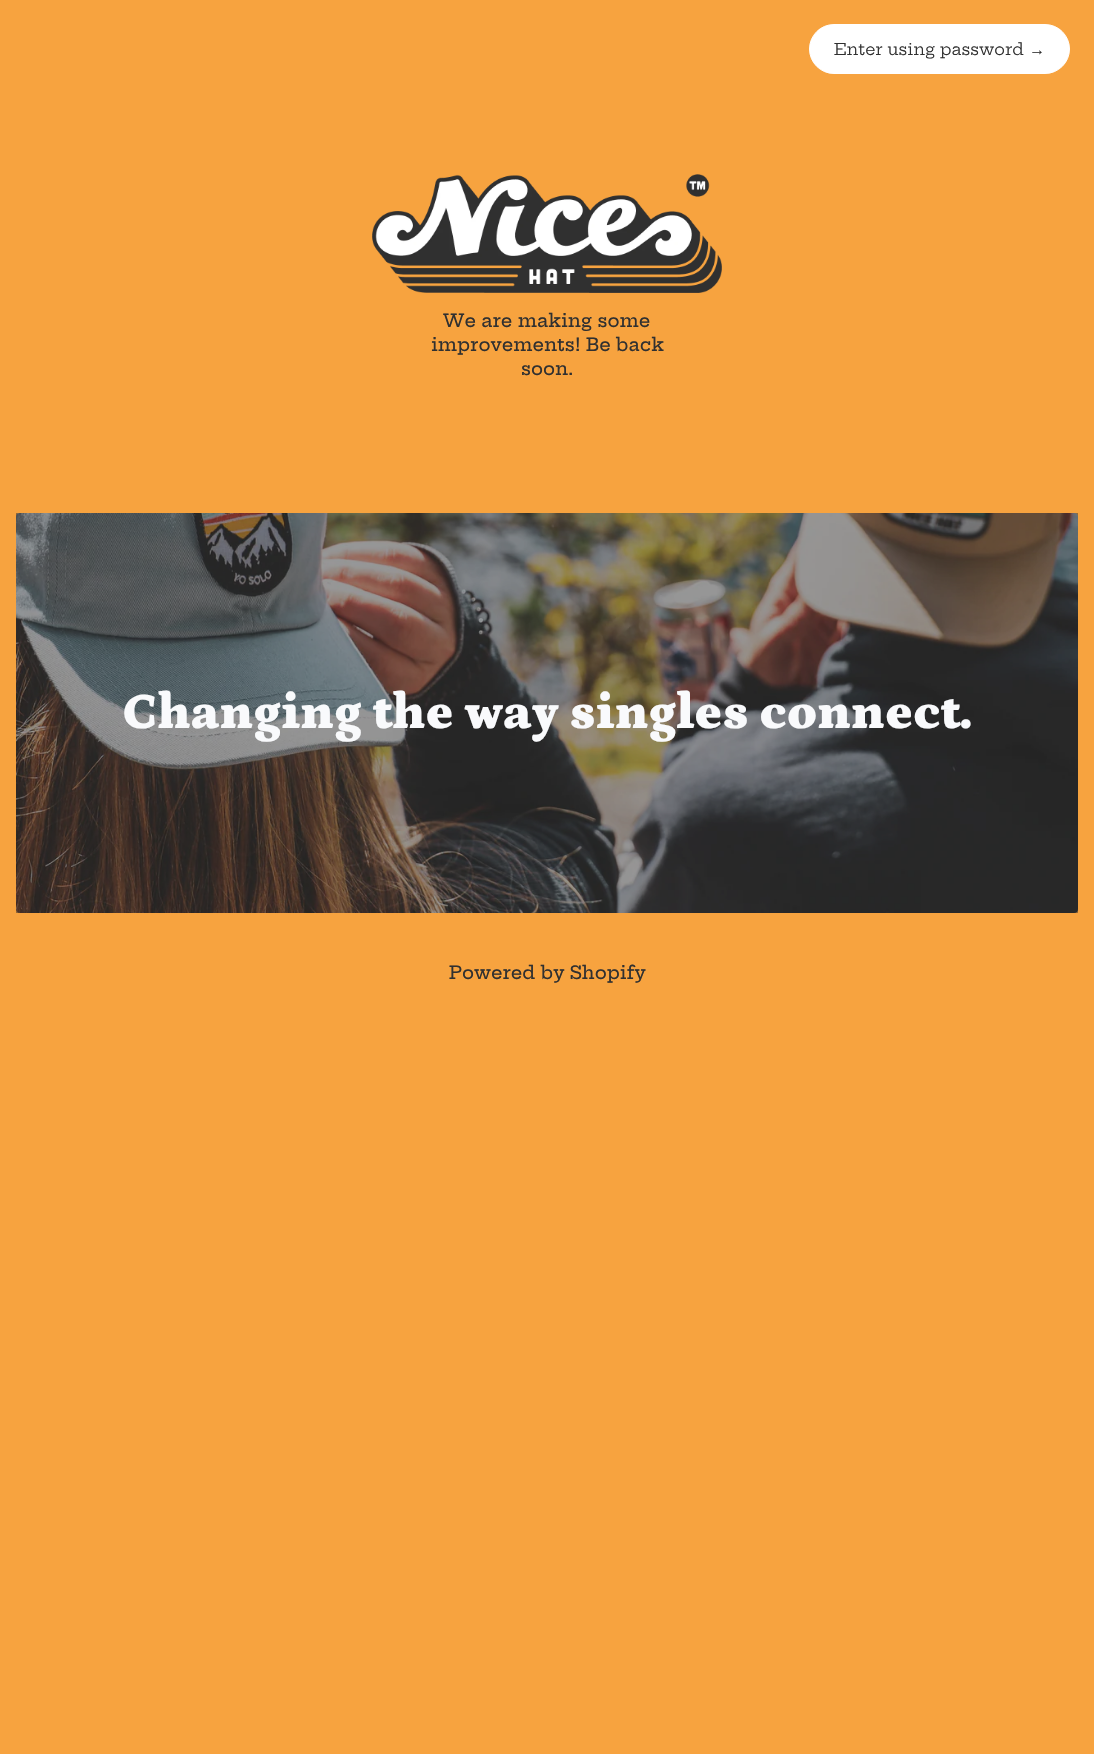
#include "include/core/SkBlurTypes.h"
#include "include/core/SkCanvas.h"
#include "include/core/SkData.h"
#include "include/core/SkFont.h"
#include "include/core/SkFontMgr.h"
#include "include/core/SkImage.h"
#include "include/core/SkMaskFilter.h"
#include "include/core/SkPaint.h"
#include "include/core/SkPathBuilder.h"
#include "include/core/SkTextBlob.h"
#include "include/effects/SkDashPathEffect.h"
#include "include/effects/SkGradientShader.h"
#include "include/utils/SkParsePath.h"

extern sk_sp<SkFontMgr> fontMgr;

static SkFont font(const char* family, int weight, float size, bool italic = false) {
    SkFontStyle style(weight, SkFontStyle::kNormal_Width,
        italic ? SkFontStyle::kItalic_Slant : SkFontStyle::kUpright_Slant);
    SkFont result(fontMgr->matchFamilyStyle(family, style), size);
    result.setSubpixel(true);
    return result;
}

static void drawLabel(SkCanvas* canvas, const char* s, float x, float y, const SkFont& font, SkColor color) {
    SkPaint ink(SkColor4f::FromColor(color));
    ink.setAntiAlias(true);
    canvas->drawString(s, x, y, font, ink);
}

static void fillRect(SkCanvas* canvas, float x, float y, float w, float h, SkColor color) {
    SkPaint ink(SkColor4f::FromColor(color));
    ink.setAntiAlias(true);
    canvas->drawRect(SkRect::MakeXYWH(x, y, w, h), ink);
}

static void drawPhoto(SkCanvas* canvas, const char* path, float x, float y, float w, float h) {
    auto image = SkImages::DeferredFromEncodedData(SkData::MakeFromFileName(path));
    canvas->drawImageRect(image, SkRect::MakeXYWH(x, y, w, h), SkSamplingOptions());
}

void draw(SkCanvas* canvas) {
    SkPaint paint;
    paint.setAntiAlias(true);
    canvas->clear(0xFFF7A33F);
    paint.setColor(0xFFFFFFFF);
    canvas->drawRoundRect(SkRect::MakeXYWH(809.5f, 24.5f, 260, 49), 24.5f, 24.5f, paint);
    paint.setStroke(true);
    paint.setStrokeWidth(1);
    canvas->drawRoundRect(SkRect::MakeXYWH(809.5f, 24.5f, 260, 49), 24.5f, 24.5f, paint);
    SkFont font1 = font("Hepta Slab", 400, 16);
    drawLabel(canvas, "Enter using password", 834, 55, font1, 0xFF303030);
    SkFont font2 = font("Liberation Serif", 400, 16);
    drawLabel(canvas, "→", 1029, 55, font2, 0xFF303030);
    drawPhoto(canvas, "assets/img1.png", 372, 174, 350, 119);
    SkFont font3 = font("Hepta Slab", 500, 18);
    drawLabel(canvas, "We are making some", 443, 327, font3, 0xFF303030);
    drawLabel(canvas, "improvements! Be back", 431, 351, font3, 0xFF303030);
    drawLabel(canvas, "soon.", 521, 375, font3, 0xFF303030);
    fillRect(canvas, 16, 513, 1062, 400, 0xFF946A38);
    drawPhoto(canvas, "assets/img2.png", 16, 513, 1062, 400);
    SkFont font4 = font("Petrona", 900, 51.1f);
    drawLabel(canvas, "Changing the way singles connect.", 123, 728, font4, 0xFFF9FAFC);
    drawLabel(canvas, "Powered by Shopify", 449, 979, font3, 0xFF303030);
}
